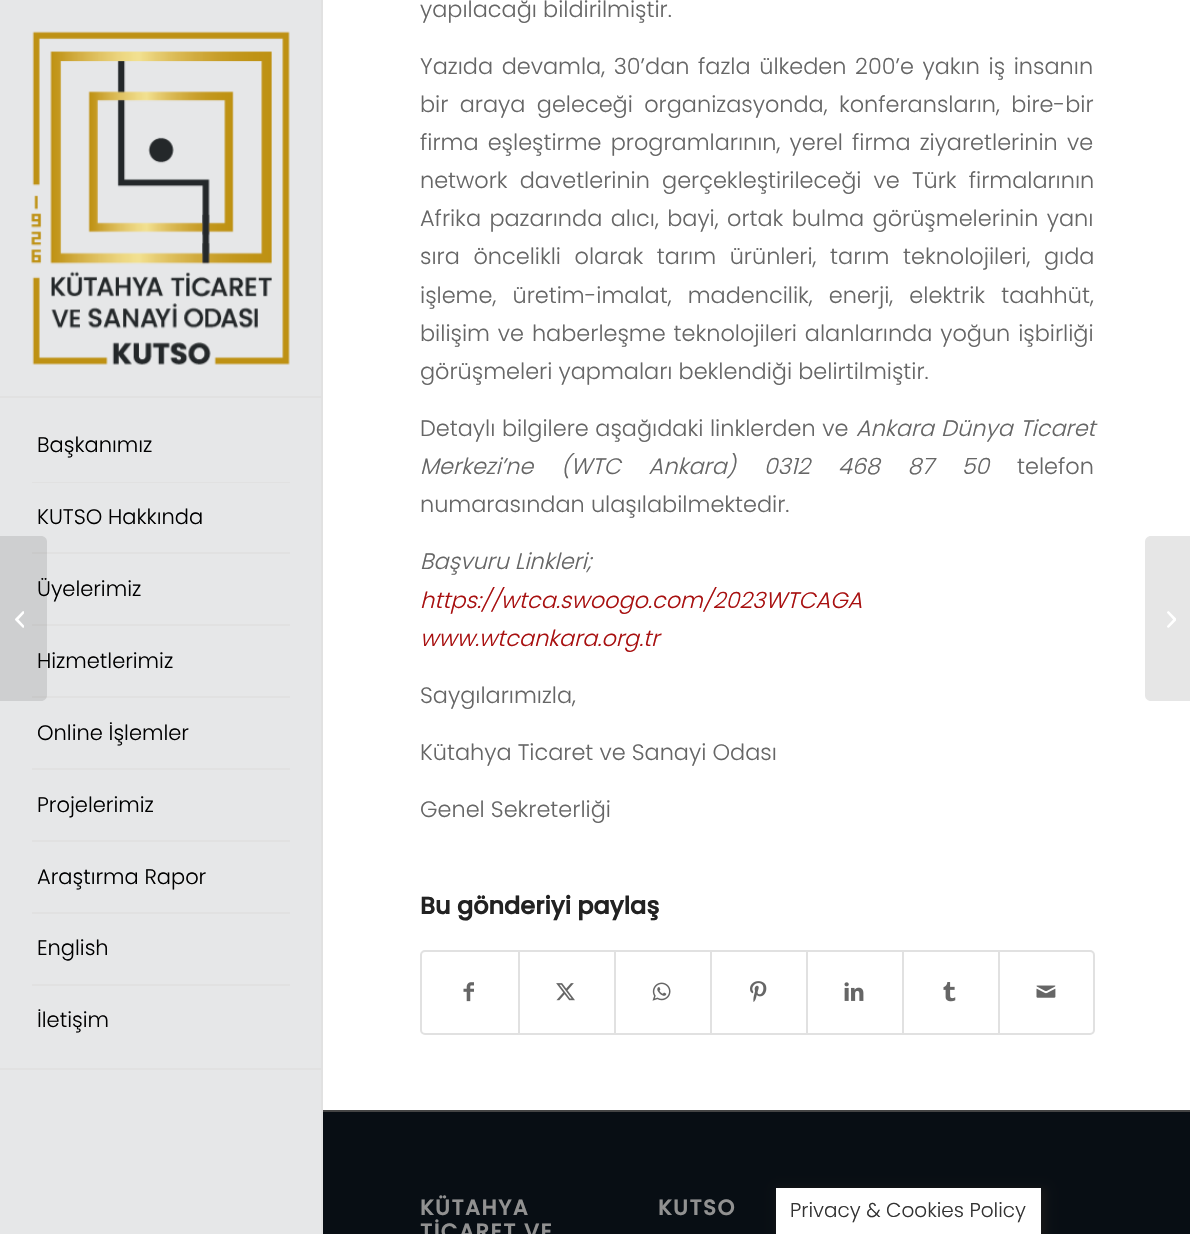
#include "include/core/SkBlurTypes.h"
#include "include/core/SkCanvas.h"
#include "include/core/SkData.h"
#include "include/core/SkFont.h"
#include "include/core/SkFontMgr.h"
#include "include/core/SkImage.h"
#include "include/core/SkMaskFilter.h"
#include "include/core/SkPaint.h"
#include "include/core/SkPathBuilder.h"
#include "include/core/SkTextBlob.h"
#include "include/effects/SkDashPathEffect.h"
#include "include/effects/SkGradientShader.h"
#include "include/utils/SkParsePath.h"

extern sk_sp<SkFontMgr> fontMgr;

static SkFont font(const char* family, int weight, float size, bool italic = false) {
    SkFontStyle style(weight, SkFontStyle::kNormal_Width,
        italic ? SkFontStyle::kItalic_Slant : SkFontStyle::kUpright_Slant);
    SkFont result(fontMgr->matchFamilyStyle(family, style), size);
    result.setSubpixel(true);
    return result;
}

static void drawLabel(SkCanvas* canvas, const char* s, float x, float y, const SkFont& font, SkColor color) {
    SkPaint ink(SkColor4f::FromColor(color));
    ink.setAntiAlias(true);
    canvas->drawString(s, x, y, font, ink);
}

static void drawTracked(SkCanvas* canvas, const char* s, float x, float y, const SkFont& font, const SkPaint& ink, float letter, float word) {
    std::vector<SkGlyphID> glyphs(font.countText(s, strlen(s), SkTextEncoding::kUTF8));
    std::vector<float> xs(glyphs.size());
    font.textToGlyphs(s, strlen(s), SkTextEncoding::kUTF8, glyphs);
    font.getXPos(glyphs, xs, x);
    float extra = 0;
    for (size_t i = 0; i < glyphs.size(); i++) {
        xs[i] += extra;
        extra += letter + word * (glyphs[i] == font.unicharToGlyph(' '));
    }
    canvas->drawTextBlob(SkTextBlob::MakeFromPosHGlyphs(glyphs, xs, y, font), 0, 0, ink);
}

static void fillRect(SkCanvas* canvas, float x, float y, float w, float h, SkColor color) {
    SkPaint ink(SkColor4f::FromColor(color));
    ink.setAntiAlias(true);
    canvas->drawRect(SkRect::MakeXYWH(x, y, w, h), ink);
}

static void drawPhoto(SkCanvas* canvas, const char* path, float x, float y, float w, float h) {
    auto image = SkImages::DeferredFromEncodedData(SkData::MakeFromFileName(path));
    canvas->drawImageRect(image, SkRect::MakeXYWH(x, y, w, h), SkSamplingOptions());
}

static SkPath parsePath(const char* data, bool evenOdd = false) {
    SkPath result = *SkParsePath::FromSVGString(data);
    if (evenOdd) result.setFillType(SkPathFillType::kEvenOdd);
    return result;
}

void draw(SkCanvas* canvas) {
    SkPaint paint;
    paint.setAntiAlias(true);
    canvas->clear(0xFFE6E7E8);
    fillRect(canvas, 32, 552, 258, 2, 0xFFE1E1E1);
    fillRect(canvas, 32, 624, 258, 2, 0xFFE1E1E1);
    fillRect(canvas, 32, 696, 258, 2, 0xFFE1E1E1);
    paint.setColor(0x1A000000);
    canvas->drawPath(parsePath("M0 536H41C44.5 536 47 538.5 47 542V695C47 698.5 44.5 701 41 701H0Z"), paint);
    drawPhoto(canvas, "assets/img1.png", 15, 611, 9, 17);
    fillRect(canvas, 0, 1068, 321, 2, 0xFFE1E1E1);
    fillRect(canvas, 0, 396, 321, 2, 0xFFE1E1E1);
    drawPhoto(canvas, "assets/img2.png", 31, 31, 259, 334);
    fillRect(canvas, 32, 482, 258, 1, 0xFFE1E1E1);
    SkFont font1 = font("Poppins", 300, 21);
    drawLabel(canvas, "Başkanımız", 37, 452, font1, 0xFF000000);
    drawLabel(canvas, "KUTSO Hakkında", 37, 524, font1, 0xFF000000);
    drawLabel(canvas, "Üyelerimiz", 37, 596, font1, 0xFF000000);
    drawLabel(canvas, "Hizmetlerimiz", 37, 668, font1, 0xFF000000);
    fillRect(canvas, 32, 768, 258, 2, 0xFFE1E1E1);
    drawLabel(canvas, "Online İşlemler", 37, 740, font1, 0xFF000000);
    fillRect(canvas, 32, 840, 258, 2, 0xFFE1E1E1);
    drawLabel(canvas, "Projelerimiz", 37, 812, font1, 0xFF000000);
    fillRect(canvas, 32, 912, 258, 2, 0xFFE1E1E1);
    drawLabel(canvas, "Araştırma Rapor", 37, 884, font1, 0xFF000000);
    fillRect(canvas, 32, 984, 258, 2, 0xFFE1E1E1);
    drawLabel(canvas, "English", 37, 955, font1, 0xFF000000);
    drawLabel(canvas, "İletişim", 37, 1027, font1, 0xFF000000);
    fillRect(canvas, 321, 0, 2, 1234, 0xFFE1E1E1);
    fillRect(canvas, 323, 0, 867, 1110, 0xFFFFFFFF);
    SkFont font2 = font("Poppins", 300, 22.4f);
    drawLabel(canvas, "yapılacağı bildirilmiştir.", 420, 17, font2, 0xFF666666);
    paint.setColor(0xFF666666);
    drawTracked(canvas, "Yazıda devamla, 30’dan fazla ülkeden 200’e yakın iş insanın", 420, 74, font2, paint, 0, 2.5f);
    drawTracked(canvas, "bir araya geleceği organizasyonda, konferansların, bire-bir", 420, 112, font2, paint, 0, 5.25f);
    drawTracked(canvas, "firma eşleştirme programlarının, yerel firma ziyaretlerinin ve", 420, 150, font2, paint, 0, 3);
    drawTracked(canvas, "network davetlerinin gerçekleştirileceği ve Türk firmalarının", 420, 188, font2, paint, 0, 6);
    drawTracked(canvas, "Afrika pazarında alıcı, bayi, ortak bulma görüşmelerinin yanı", 420, 226, font2, paint, 0, 2.25f);
    drawTracked(canvas, "sıra öncelikli olarak tarım ürünleri, tarım teknolojileri, gıda", 420, 264, font2, paint, 0, 7.5f);
    drawTracked(canvas, "işleme, üretim-imalat, madencilik, enerji, elektrik taahhüt,", 420, 303, font2, paint, 0, 10);
    drawTracked(canvas, "bilişim ve haberleşme teknolojileri alanlarında yoğun işbirliği", 420, 341, font2, paint, 0, 1.75f);
    drawLabel(canvas, "görüşmeleri yapmaları beklendiği belirtilmiştir.", 420, 379, font2, 0xFF666666);
    drawTracked(canvas, "Detaylı bilgilere aşağıdaki linklerden ve", 420, 436, font2, paint, 0, 0.5f);
    SkFont font3 = font("Poppins", 300, 22.4f, true);
    drawTracked(canvas, "Ankara Dünya Ticaret", 856, 436, font3, paint, 0, 1);
    drawTracked(canvas, "Merkezi’ne (WTC Ankara) 0312 468 87 50", 420, 474, font3, paint, 0, 21.75f);
    drawLabel(canvas, "telefon", 1017, 474, font2, 0xFF666666);
    drawLabel(canvas, "numarasından ulaşılabilmektedir.", 420, 512, font2, 0xFF666666);
    drawLabel(canvas, "Başvuru Linkleri;", 420, 569, font3, 0xFF666666);
    drawLabel(canvas, "https://wtca.swoogo.com/2023WTCAGA", 420, 608, font3, 0xFFA81010);
    drawLabel(canvas, "www.wtcankara.org.tr", 420, 646, font3, 0xFFA81010);
    drawLabel(canvas, "Saygılarımızla,", 420, 703, font2, 0xFF666666);
    drawLabel(canvas, "Kütahya Ticaret ve Sanayi Odası", 420, 760, font2, 0xFF666666);
    drawLabel(canvas, "Genel Sekreterliği", 420, 817, font2, 0xFF666666);
    SkFont font4 = font("Poppins", 700, 24);
    drawLabel(canvas, "Bu gönderiyi paylaş", 420, 914, font4, 0xFF222222);
    paint.setStroke(true);
    paint.setStrokeWidth(2);
    paint.setColor(0xFFE1E1E1);
    canvas->drawRoundRect(SkRect::MakeXYWH(421, 951, 673, 83), 4, 4, paint);
    drawPhoto(canvas, "assets/img3.png", 463, 982, 11, 20);
    fillRect(canvas, 518, 951, 2, 83, 0xFFE1E1E1);
    drawPhoto(canvas, "assets/img4.png", 556, 983, 19, 18);
    fillRect(canvas, 614, 951, 2, 83, 0xFFE1E1E1);
    drawPhoto(canvas, "assets/img5.png", 652, 982, 19, 19);
    fillRect(canvas, 710, 951, 2, 83, 0xFFE1E1E1);
    drawPhoto(canvas, "assets/img6.png", 750, 981, 17, 21);
    fillRect(canvas, 806, 951, 2, 83, 0xFFE1E1E1);
    drawPhoto(canvas, "assets/img7.png", 844, 982, 20, 19);
    fillRect(canvas, 902, 951, 2, 83, 0xFFE1E1E1);
    drawPhoto(canvas, "assets/img8.png", 943, 982, 13, 20);
    fillRect(canvas, 998, 951, 2, 83, 0xFFE1E1E1);
    drawPhoto(canvas, "assets/img9.png", 1036, 985, 20, 13);
    fillRect(canvas, 323, 1112, 867, 122, 0xFF080E14);
    fillRect(canvas, 323, 1110, 867, 2, 0xFF444444);
    SkFont font5 = font("Poppins", 700, 21.5f);
    paint.setStroke(false);
    paint.setColor(0xFF919191);
    drawTracked(canvas, "KÜTAHYA", 420, 1215, font5, paint, 1.5f, 0);
    drawTracked(canvas, "TİCARET VE", 420, 1239, font5, paint, 1.5f, 0);
    drawTracked(canvas, "KUTSO", 658, 1215, font5, paint, 1.5f, 0);
    paint.setColor(0xFFE6E6E6);
    canvas->drawPath(parsePath("M1151 536H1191V701H1151C1147.5 701 1145 698.5 1145 695V542C1145 538.5 1147.5 536 1151 536Z"), paint);
    drawPhoto(canvas, "assets/img10.png", 1167, 611, 9, 17);
    paint.setColor(0xFF161616);
    paint.setMaskFilter(SkMaskFilter::MakeBlur(kNormal_SkBlurStyle, 4));
    canvas->drawRect(SkRect::MakeXYWH(776, 1188, 271, 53), paint);
    paint.setMaskFilter(nullptr);
    fillRect(canvas, 776, 1188, 265, 46, 0xFFFFFFFF);
    SkFont font6 = font("Poppins", 300, 20);
    drawLabel(canvas, "Privacy & Cookies Policy", 790, 1217, font6, 0xFF333333);
}
